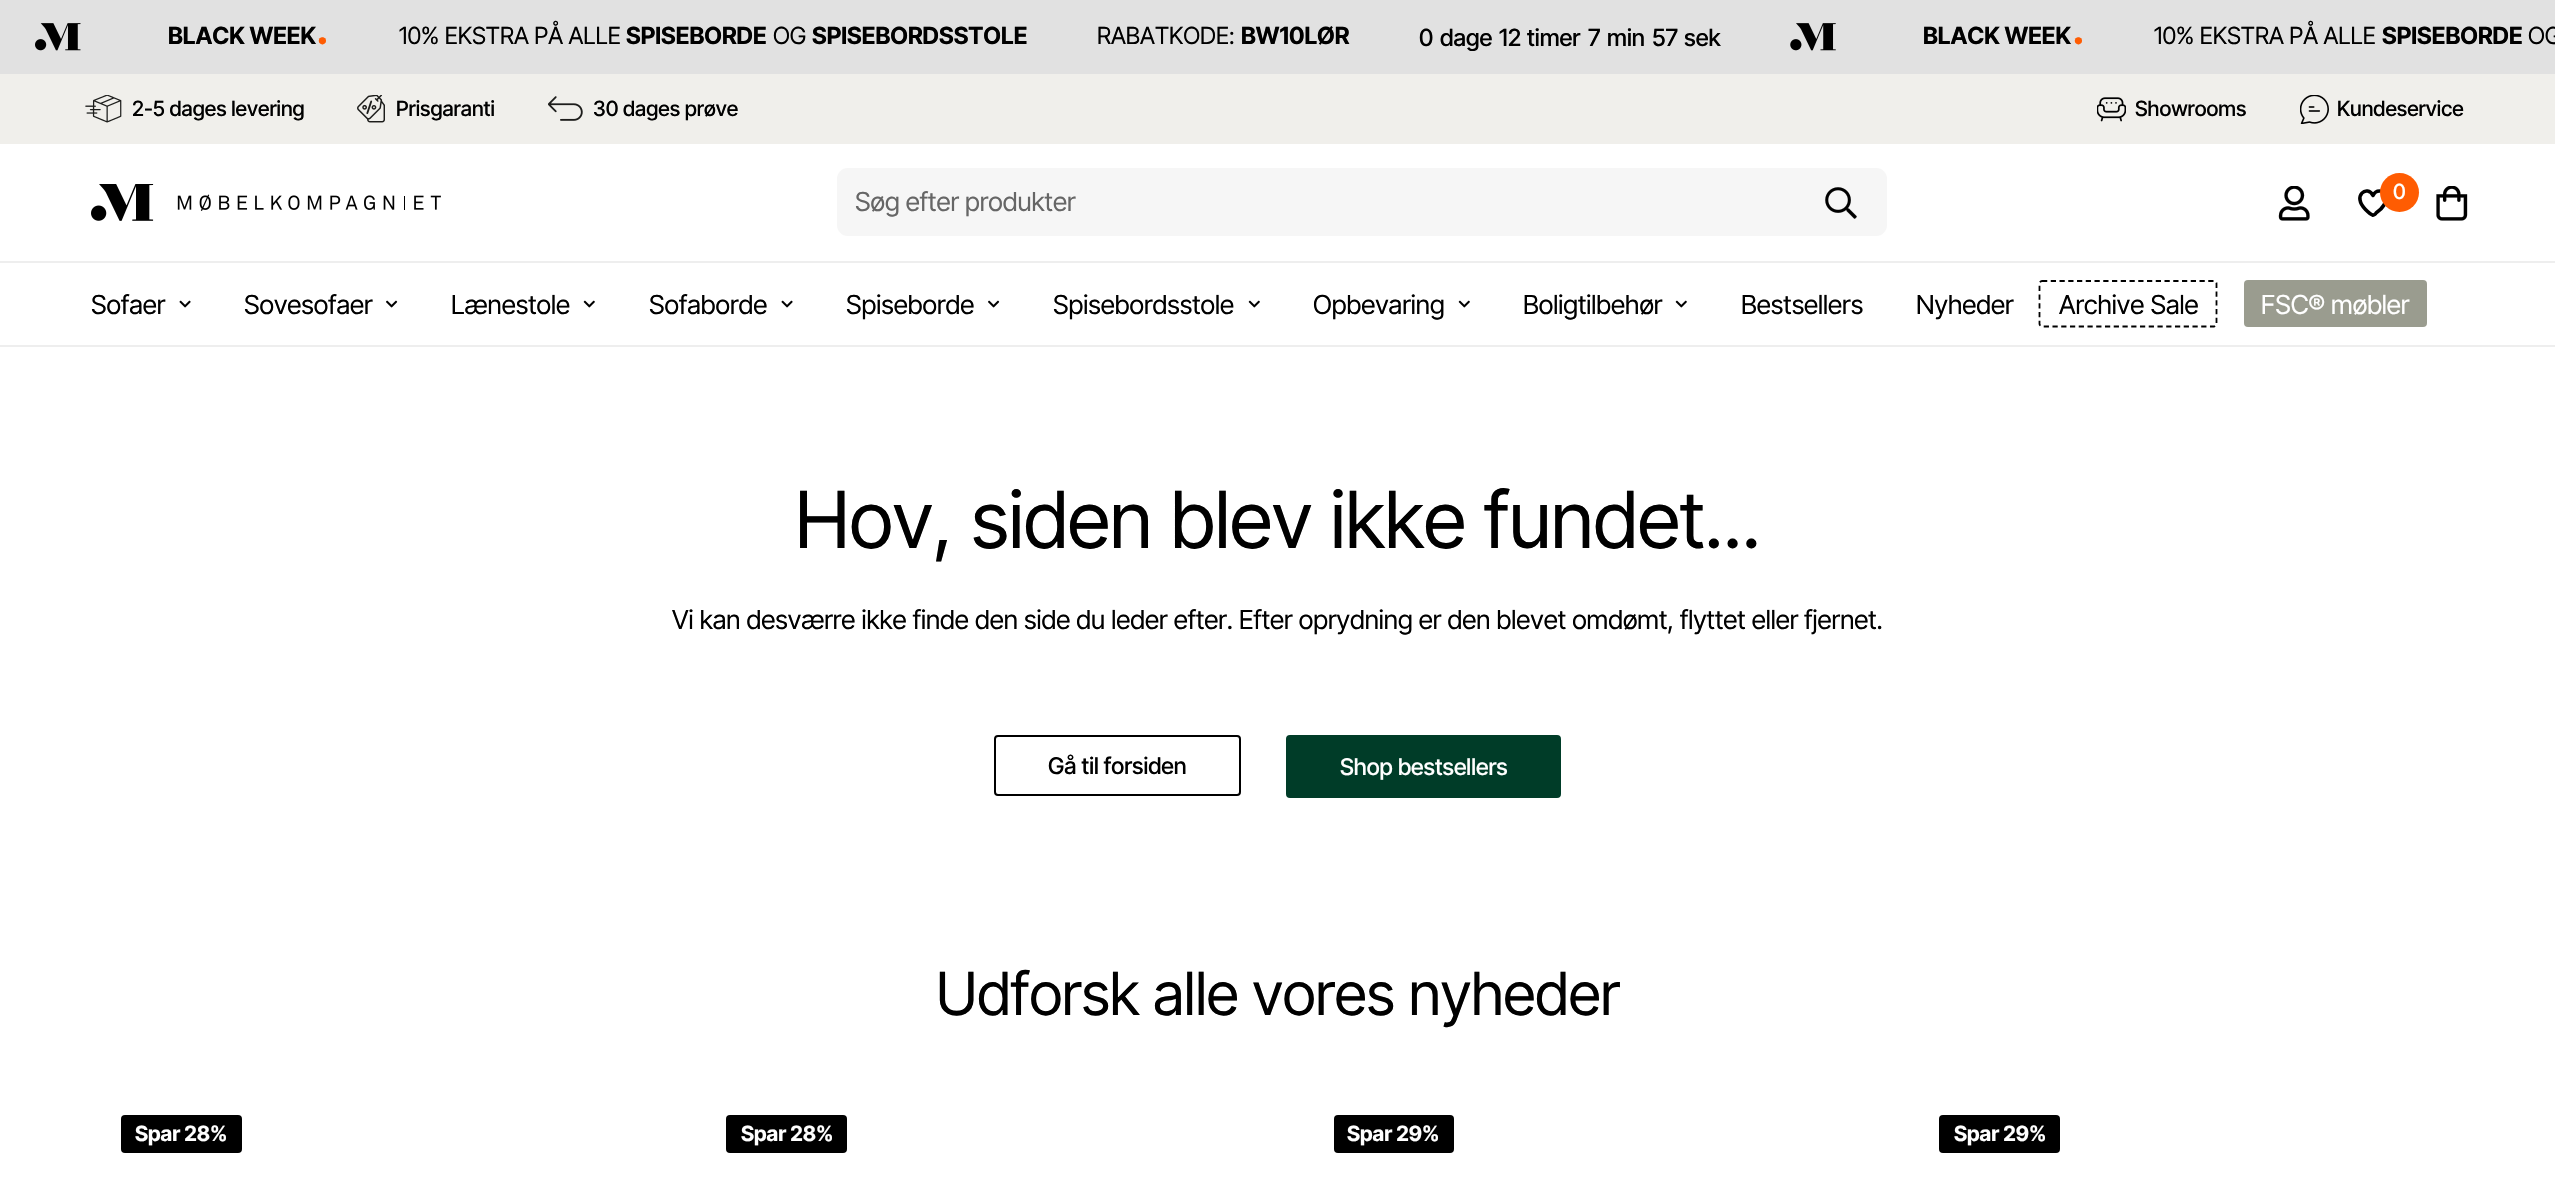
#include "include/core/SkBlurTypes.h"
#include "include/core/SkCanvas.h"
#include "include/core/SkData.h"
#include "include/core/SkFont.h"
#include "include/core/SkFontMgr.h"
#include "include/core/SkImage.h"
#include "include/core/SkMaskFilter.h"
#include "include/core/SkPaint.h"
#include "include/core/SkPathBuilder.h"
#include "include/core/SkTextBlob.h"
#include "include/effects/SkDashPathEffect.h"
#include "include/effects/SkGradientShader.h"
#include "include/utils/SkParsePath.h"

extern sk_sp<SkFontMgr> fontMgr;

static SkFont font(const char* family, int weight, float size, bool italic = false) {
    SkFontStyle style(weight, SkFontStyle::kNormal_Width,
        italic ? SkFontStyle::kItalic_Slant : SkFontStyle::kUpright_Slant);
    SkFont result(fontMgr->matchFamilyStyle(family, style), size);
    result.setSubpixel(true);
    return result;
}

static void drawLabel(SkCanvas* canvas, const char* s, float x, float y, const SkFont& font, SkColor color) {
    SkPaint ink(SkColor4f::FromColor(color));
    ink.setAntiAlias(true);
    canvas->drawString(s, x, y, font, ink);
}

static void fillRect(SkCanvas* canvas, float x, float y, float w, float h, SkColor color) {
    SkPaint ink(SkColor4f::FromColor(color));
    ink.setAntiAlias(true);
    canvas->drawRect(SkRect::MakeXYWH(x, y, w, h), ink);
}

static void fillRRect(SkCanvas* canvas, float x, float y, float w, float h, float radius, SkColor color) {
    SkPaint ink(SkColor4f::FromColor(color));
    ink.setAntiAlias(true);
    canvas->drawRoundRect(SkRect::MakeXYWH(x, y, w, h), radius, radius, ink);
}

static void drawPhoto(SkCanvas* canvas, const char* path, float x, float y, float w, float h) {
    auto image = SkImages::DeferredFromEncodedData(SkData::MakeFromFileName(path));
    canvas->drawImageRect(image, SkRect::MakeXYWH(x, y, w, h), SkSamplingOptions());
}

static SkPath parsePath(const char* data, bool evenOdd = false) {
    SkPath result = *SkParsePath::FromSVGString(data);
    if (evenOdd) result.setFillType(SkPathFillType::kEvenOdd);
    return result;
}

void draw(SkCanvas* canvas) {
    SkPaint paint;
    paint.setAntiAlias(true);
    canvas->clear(0xFFFFFFFF);
    fillRect(canvas, 0, 0, 2555, 74, 0xFFE1E1E1);
    drawPhoto(canvas, "assets/img1.png", 35, 23, 46, 28);
    SkFont font1 = font("Inter Tight", 700, 23.6f);
    drawLabel(canvas, "BLACK WEEK", 168, 44, font1, 0xFF000000);
    SkFont font2 = font("Inter Tight", 700, 42);
    drawLabel(canvas, ".", 316, 44, font2, 0xFFFF5C02);
    SkFont font3 = font("Inter Tight", 400, 23.6f);
    drawLabel(canvas, "10% EKSTRA PÅ ALLE", 399, 44, font3, 0xFF000000);
    drawLabel(canvas, "SPISEBORDE", 626, 44, font1, 0xFF000000);
    drawLabel(canvas, "OG", 773, 44, font3, 0xFF000000);
    drawLabel(canvas, "SPISEBORDSSTOLE", 812, 44, font1, 0xFF000000);
    drawLabel(canvas, "RABATKODE:", 1097, 44, font3, 0xFF000000);
    drawLabel(canvas, "BW10LØR", 1241, 44, font1, 0xFF000000);
    SkFont font4 = font("Inter Tight", 500, 23.6f);
    drawLabel(canvas, "0", 1419, 46, font4, 0xFF000000);
    drawLabel(canvas, "dage", 1440, 46, font4, 0xFF000000);
    drawLabel(canvas, "12", 1499, 46, font4, 0xFF000000);
    drawLabel(canvas, "timer", 1527, 46, font4, 0xFF000000);
    drawLabel(canvas, "7", 1588, 46, font4, 0xFF000000);
    drawLabel(canvas, "min", 1607, 46, font4, 0xFF000000);
    drawLabel(canvas, "57", 1652, 46, font4, 0xFF000000);
    drawLabel(canvas, "sek", 1684, 46, font4, 0xFF000000);
    drawPhoto(canvas, "assets/img2.png", 1790, 23, 46, 28);
    drawLabel(canvas, "BLACK WEEK", 1923, 44, font1, 0xFF000000);
    drawLabel(canvas, ".", 2072, 44, font2, 0xFFFF5C02);
    drawLabel(canvas, "10% EKSTRA PÅ ALLE", 2154, 44, font3, 0xFF000000);
    drawLabel(canvas, "SPISEBORDE", 2382, 44, font1, 0xFF000000);
    drawLabel(canvas, "OG", 2528, 44, font3, 0xFF000000);
    fillRect(canvas, 0, 74, 2555, 70, 0xFFF0EFEB);
    drawPhoto(canvas, "assets/img3.png", 85, 95, 37, 28);
    SkFont font5 = font("Inter Tight", 500, 21);
    drawLabel(canvas, "2-5 dages levering", 132, 116, font5, 0xFF000000);
    drawPhoto(canvas, "assets/img4.png", 357, 95, 28, 28);
    drawLabel(canvas, "Prisgaranti", 396, 116, font5, 0xFF000000);
    drawPhoto(canvas, "assets/img5.png", 548, 96, 35, 25);
    drawLabel(canvas, "30 dages prøve", 593, 116, font5, 0xFF000000);
    drawPhoto(canvas, "assets/img6.png", 2097, 97, 29, 25);
    drawLabel(canvas, "Showrooms", 2135, 116, font5, 0xFF000000);
    drawPhoto(canvas, "assets/img7.png", 2300, 95, 29, 29);
    drawLabel(canvas, "Kundeservice", 2337, 116, font5, 0xFF000000);
    drawPhoto(canvas, "assets/img8.png", 91, 184, 350, 37);
    fillRRect(canvas, 837, 168, 1050, 68, 11, 0xFFF6F6F6);
    SkFont font6 = font("Inter Tight", 400, 26.25f);
    drawLabel(canvas, "Søg efter produkter", 855, 211, font6, 0xFF666666);
    drawPhoto(canvas, "assets/img9.png", 1825, 187, 32, 32);
    drawPhoto(canvas, "assets/img10.png", 2278, 186, 32, 35);
    paint.setStroke(true);
    paint.setStrokeWidth(3.6f);
    paint.setStrokeCap(SkPaint::kRound_Cap);
    paint.setStrokeJoin(SkPaint::kRound_Join);
    paint.setColor(0xFF000000);
    canvas->drawPath(parsePath("M2379.5 191C2375 191 2373 195.5 2373 195.5C2367.5 184.5 2351.5 195.5 2365.5 209.5C2367 211 2370.5 214.5 2372.5 215C2374 215.5 2376 213.5 2376 213C2379 211 2382 208.5 2384 205C2387 200.5 2387.5 191 2379.5 191Z"), paint);
    paint.setStroke(false);
    paint.setColor(0xFFFF5C02);
    canvas->drawCircle(2399.5f, 192.5f, 19.5f, paint);
    drawLabel(canvas, "0", 2393, 199, font5, 0xFFFFFFFF);
    drawPhoto(canvas, "assets/img11.png", 2436, 186, 32, 35);
    fillRect(canvas, 0, 261, 2555, 2, 0xFFEEEEEE);
    fillRect(canvas, 0, 345, 2555, 2, 0xFFEEEEEE);
    drawLabel(canvas, "Sofaer", 91, 314, font6, 0xFF000000);
    drawPhoto(canvas, "assets/img12.png", 179, 300, 12, 8);
    drawLabel(canvas, "Sovesofaer", 244, 314, font6, 0xFF000000);
    drawPhoto(canvas, "assets/img13.png", 386, 300, 12, 8);
    drawLabel(canvas, "Lænestole", 451, 314, font6, 0xFF000000);
    drawPhoto(canvas, "assets/img14.png", 583, 300, 12, 8);
    drawLabel(canvas, "Sofaborde", 649, 314, font6, 0xFF000000);
    drawPhoto(canvas, "assets/img12.png", 781, 300, 12, 8);
    drawLabel(canvas, "Spiseborde", 846, 314, font6, 0xFF000000);
    drawPhoto(canvas, "assets/img13.png", 988, 300, 12, 8);
    drawLabel(canvas, "Spisebordsstole", 1053, 314, font6, 0xFF000000);
    drawPhoto(canvas, "assets/img14.png", 1248, 300, 12, 8);
    drawLabel(canvas, "Opbevaring", 1313, 314, font6, 0xFF000000);
    drawPhoto(canvas, "assets/img14.png", 1458, 300, 12, 8);
    drawLabel(canvas, "Boligtilbehør", 1523, 314, font6, 0xFF000000);
    drawPhoto(canvas, "assets/img14.png", 1675, 300, 12, 8);
    drawLabel(canvas, "Bestsellers", 1741, 314, font6, 0xFF000000);
    drawLabel(canvas, "Nyheder", 1916, 314, font6, 0xFF000000);
    paint.setStroke(true);
    paint.setStrokeWidth(1.8f);
    paint.setStrokeCap(SkPaint::kButt_Cap);
    paint.setStrokeJoin(SkPaint::kMiter_Join);
    paint.setColor(0xFF000000);
    paint.setPathEffect(SkDashPathEffect::Make({{5.25f, 3.5f}}, 0));
    canvas->drawPath(parsePath("M2042 281H2214C2215 281 2216.5 282 2216.5 283.5V324C2216.5 325 2215 326.5 2214 326.5H2042C2041 326.5 2039.5 325 2039.5 324V283.5C2039.5 282 2041 281 2042 281Z"), paint);
    paint.setPathEffect(nullptr);
    drawLabel(canvas, "Archive Sale", 2059, 314, font6, 0xFF000000);
    fillRRect(canvas, 2244, 280, 183, 47, 4, 0xFF9A9C8F);
    drawLabel(canvas, "FSC® møbler", 2261, 314, font6, 0xFFFFFFFF);
    SkFont font7 = font("Inter Tight", 400, 78.75f);
    drawLabel(canvas, "Hov, siden blev ikke fundet...", 795, 548, font7, 0xFF000000);
    drawLabel(canvas, "Vi kan desværre ikke finde den side du leder efter. Efter oprydning er den blevet omdømt, flyttet eller fjernet.", 672, 629, font6, 0xFF000000);
    paint.setStrokeWidth(2);
    canvas->drawRoundRect(SkRect::MakeXYWH(995, 736, 245, 59), 3, 3, paint);
    SkFont font8 = font("Inter Tight", 500, 23);
    drawLabel(canvas, "Gå til forsiden", 1048, 774, font8, 0xFF000000);
    paint.setStroke(false);
    paint.setColor(0xFF003C28);
    canvas->drawRoundRect(SkRect::MakeXYWH(1287, 736, 273, 61), 3, 3, paint);
    paint.setStroke(true);
    canvas->drawRoundRect(SkRect::MakeXYWH(1287, 736, 273, 61), 3, 3, paint);
    drawLabel(canvas, "Shop bestsellers", 1340, 775, font8, 0xFFFFFFFF);
    SkFont font9 = font("Inter Tight", 400, 59.5f);
    drawLabel(canvas, "Udforsk alle vores nyheder", 936, 1015, font9, 0xFF000000);
    fillRRect(canvas, 121, 1115, 121, 38, 4, 0xFF000000);
    SkFont font10 = font("Inter Tight", 700, 21);
    drawLabel(canvas, "Spar 28%", 135, 1141, font10, 0xFFFFFFFF);
    fillRRect(canvas, 726, 1115, 121, 38, 4, 0xFF000000);
    drawLabel(canvas, "Spar 28%", 741, 1141, font10, 0xFFFFFFFF);
    fillRRect(canvas, 1334, 1115, 120, 38, 4, 0xFF000000);
    drawLabel(canvas, "Spar 29%", 1347, 1141, font10, 0xFFFFFFFF);
    fillRRect(canvas, 1939, 1115, 121, 38, 4, 0xFF000000);
    drawLabel(canvas, "Spar 29%", 1954, 1141, font10, 0xFFFFFFFF);
}
